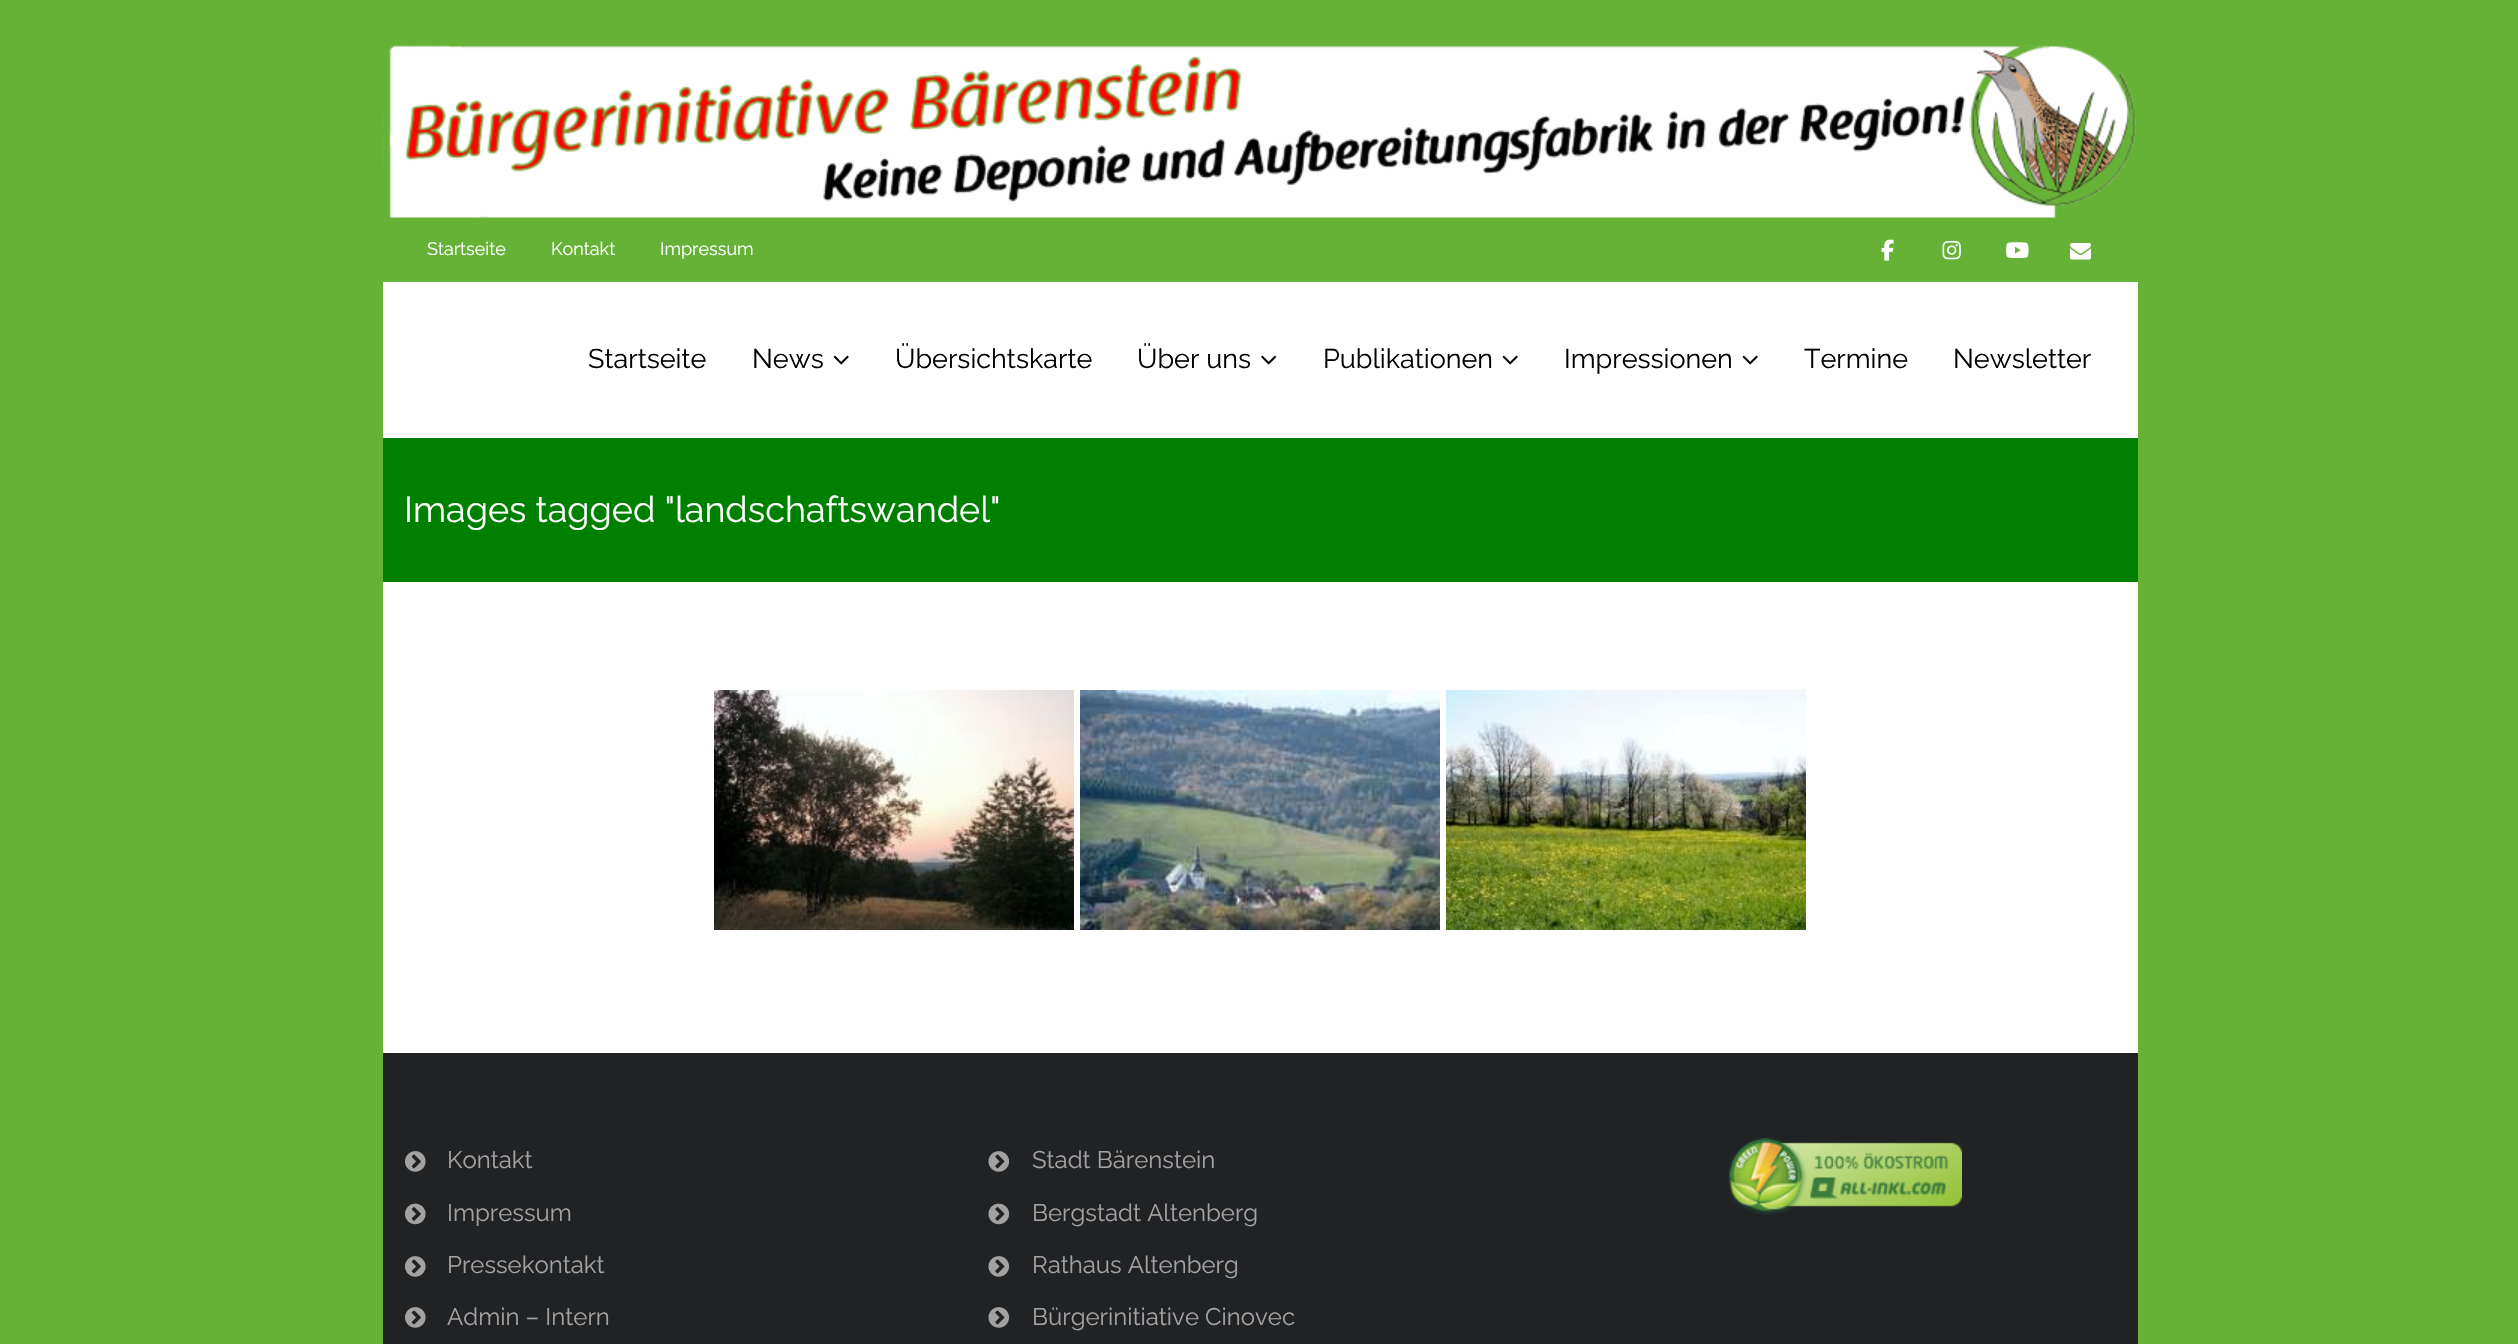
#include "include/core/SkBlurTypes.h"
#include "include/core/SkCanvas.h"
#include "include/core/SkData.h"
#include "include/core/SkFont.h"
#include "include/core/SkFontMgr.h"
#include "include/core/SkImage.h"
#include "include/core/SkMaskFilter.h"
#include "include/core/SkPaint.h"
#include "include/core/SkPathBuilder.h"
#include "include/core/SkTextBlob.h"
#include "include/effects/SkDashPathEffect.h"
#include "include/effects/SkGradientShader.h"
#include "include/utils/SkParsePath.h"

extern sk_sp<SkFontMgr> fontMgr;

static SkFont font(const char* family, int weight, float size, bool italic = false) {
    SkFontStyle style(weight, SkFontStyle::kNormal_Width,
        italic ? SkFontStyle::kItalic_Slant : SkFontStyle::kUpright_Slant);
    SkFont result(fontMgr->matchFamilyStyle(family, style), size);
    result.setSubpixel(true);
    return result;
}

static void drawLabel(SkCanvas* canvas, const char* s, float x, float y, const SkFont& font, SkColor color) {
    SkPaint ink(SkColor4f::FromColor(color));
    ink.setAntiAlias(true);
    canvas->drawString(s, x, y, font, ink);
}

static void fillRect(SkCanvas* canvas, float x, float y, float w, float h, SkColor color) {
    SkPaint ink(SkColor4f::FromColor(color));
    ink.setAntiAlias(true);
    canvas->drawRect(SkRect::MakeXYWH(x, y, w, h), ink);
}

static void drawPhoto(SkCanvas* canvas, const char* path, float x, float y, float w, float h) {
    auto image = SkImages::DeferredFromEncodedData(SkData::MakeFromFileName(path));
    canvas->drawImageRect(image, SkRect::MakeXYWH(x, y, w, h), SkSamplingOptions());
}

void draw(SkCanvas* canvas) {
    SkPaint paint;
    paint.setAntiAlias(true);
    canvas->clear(0xFF66B237);
    drawPhoto(canvas, "assets/img1.png", 382, 45, 1755, 173);
    fillRect(canvas, 383, 282, 1755, 771, 0xFFFFFFFF);
    SkFont font1 = font("Raleway", 400, 18);
    drawLabel(canvas, "Startseite", 427, 255, font1, 0xFFFFFFFF);
    drawLabel(canvas, "Kontakt", 551, 255, font1, 0xFFFFFFFF);
    drawLabel(canvas, "Impressum", 660, 255, font1, 0xFFFFFFFF);
    drawPhoto(canvas, "assets/img2.png", 1881, 239, 13, 22);
    drawPhoto(canvas, "assets/img3.png", 1942, 240, 19, 20);
    drawPhoto(canvas, "assets/img4.png", 2006, 242, 23, 16);
    drawPhoto(canvas, "assets/img5.png", 2070, 243, 21, 17);
    SkFont font2 = font("Raleway", 400, 27);
    drawLabel(canvas, "Startseite", 588, 368, font2, 0xFF000000);
    drawLabel(canvas, "News", 752, 368, font2, 0xFF000000);
    drawPhoto(canvas, "assets/img6.png", 833, 355, 16, 10);
    drawLabel(canvas, "Übersichtskarte", 895, 368, font2, 0xFF000000);
    drawLabel(canvas, "Über uns", 1137, 368, font2, 0xFF000000);
    drawPhoto(canvas, "assets/img7.png", 1261, 355, 16, 10);
    drawLabel(canvas, "Publikationen", 1323, 368, font2, 0xFF000000);
    drawPhoto(canvas, "assets/img6.png", 1502, 355, 16, 10);
    drawLabel(canvas, "Impressionen", 1564, 368, font2, 0xFF000000);
    drawPhoto(canvas, "assets/img6.png", 1742, 355, 16, 10);
    drawLabel(canvas, "Termine", 1804, 368, font2, 0xFF000000);
    drawLabel(canvas, "Newsletter", 1953, 368, font2, 0xFF000000);
    fillRect(canvas, 383, 438, 1755, 144, 0xFF008000);
    SkFont font3 = font("Raleway", 400, 36);
    drawLabel(canvas, "Images tagged \"landschaftswandel\"", 404, 522, font3, 0xFFFFFFFF);
    drawPhoto(canvas, "assets/img8.png", 714, 690, 360, 240);
    drawPhoto(canvas, "assets/img9.png", 1080, 690, 360, 240);
    drawPhoto(canvas, "assets/img10.png", 1446, 690, 360, 240);
    fillRect(canvas, 383, 1053, 1755, 291, 0xFF202224);
    drawPhoto(canvas, "assets/img11.png", 405, 1151, 21, 21);
    SkFont font4 = font("Raleway", 400, 24);
    drawLabel(canvas, "Kontakt", 447, 1168, font4, 0xFFA2A2A3);
    drawPhoto(canvas, "assets/img12.png", 405, 1203, 21, 22);
    drawLabel(canvas, "Impressum", 447, 1221, font4, 0xFFA2A2A3);
    drawPhoto(canvas, "assets/img11.png", 405, 1256, 21, 21);
    drawLabel(canvas, "Pressekontakt", 447, 1273, font4, 0xFFA2A2A3);
    drawPhoto(canvas, "assets/img11.png", 405, 1307, 21, 21);
    drawLabel(canvas, "Admin – Intern", 447, 1325, font4, 0xFFA2A2A3);
    drawPhoto(canvas, "assets/img13.png", 988, 1151, 22, 21);
    drawLabel(canvas, "Stadt Bärenstein", 1032, 1168, font4, 0xFFA2A2A3);
    drawPhoto(canvas, "assets/img14.png", 988, 1203, 22, 22);
    drawLabel(canvas, "Bergstadt Altenberg", 1032, 1221, font4, 0xFFA2A2A3);
    drawPhoto(canvas, "assets/img13.png", 988, 1256, 22, 21);
    drawLabel(canvas, "Rathaus Altenberg", 1032, 1273, font4, 0xFFA2A2A3);
    drawPhoto(canvas, "assets/img13.png", 988, 1307, 22, 21);
    drawLabel(canvas, "Bürgerinitiative Cinovec", 1032, 1325, font4, 0xFFA2A2A3);
    drawPhoto(canvas, "assets/img15.png", 1728, 1137, 234, 78);
}
